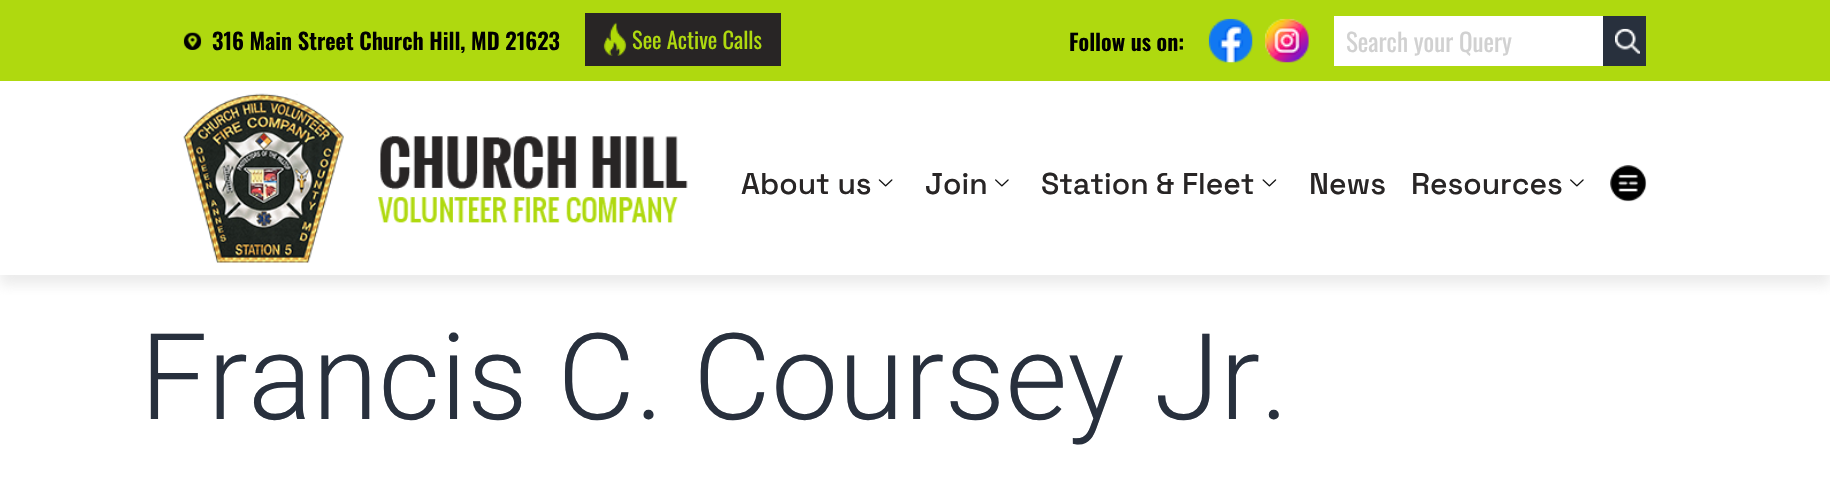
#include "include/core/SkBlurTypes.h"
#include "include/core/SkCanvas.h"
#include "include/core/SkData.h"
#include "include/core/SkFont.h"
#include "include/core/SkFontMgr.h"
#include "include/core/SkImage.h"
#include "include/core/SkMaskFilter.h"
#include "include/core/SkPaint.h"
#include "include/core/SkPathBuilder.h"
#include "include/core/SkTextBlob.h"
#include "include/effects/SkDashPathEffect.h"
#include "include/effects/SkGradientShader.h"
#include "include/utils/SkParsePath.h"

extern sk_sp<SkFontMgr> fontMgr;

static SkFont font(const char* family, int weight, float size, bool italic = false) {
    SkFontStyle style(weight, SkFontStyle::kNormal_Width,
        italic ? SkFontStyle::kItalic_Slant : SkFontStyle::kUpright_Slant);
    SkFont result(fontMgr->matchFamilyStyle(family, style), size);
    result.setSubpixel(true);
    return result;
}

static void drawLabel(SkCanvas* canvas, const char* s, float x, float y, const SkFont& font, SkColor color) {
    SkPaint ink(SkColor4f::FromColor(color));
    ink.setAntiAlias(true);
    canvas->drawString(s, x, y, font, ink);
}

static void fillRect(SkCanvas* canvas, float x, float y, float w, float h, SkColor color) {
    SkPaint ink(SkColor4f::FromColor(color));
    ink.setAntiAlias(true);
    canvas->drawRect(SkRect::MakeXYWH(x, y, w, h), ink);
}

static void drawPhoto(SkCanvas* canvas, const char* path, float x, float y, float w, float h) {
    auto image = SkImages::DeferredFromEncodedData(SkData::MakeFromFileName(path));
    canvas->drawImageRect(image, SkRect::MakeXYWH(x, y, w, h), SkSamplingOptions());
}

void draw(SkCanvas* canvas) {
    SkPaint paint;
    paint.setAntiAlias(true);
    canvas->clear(0xFFFFFFFF);
    fillRect(canvas, 0, 0, 1830, 81, 0xFFAFD90F);
    drawPhoto(canvas, "assets/img1.png", 183, 32, 19, 18);
    SkFont font1 = font("Oswald", 600, 22.5f);
    drawLabel(canvas, "316 Main Street Church Hill, MD 21623", 212, 50, font1, 0xFF000000);
    fillRect(canvas, 585, 13, 196, 53, 0xFF282525);
    drawPhoto(canvas, "assets/img2.png", 603, 22, 24, 34);
    SkFont font2 = font("Oswald", 400, 22.5f);
    drawLabel(canvas, "See Active Calls", 632, 49, font2, 0xFFAFD90F);
    drawLabel(canvas, "Follow us on:", 1069, 51, font1, 0xFF000000);
    drawPhoto(canvas, "assets/img3.png", 1208, 18, 45, 45);
    drawPhoto(canvas, "assets/img4.png", 1265, 18, 44, 45);
    fillRect(canvas, 1334, 16, 269, 50, 0xFFFFFFFF);
    SkFont font3 = font("Oswald", 400, 25);
    drawLabel(canvas, "Search your Query", 1346, 52, font3, 0xFFD1D1D1);
    fillRect(canvas, 1603, 16, 43, 50, 0xFF28303D);
    drawPhoto(canvas, "assets/img5.png", 1615, 28, 25, 26);
    canvas->save();
    canvas->clipRect(SkRect::MakeXYWH(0, 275, 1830, 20));
    paint.setColor(0x80D8D8D8);
    paint.setMaskFilter(SkMaskFilter::MakeBlur(kNormal_SkBlurStyle, 6));
    canvas->drawRect(SkRect::MakeXYWH(0, 91, 1830, 194), paint);
    paint.setMaskFilter(nullptr);
    canvas->restore();
    drawPhoto(canvas, "assets/img6.png", 183, 93, 505, 170);
    SkFont font4 = font("Space Grotesk", 500, 30);
    drawLabel(canvas, "About us", 741, 194, font4, 0xFF282525);
    drawPhoto(canvas, "assets/img7.png", 878, 179, 15, 8);
    drawLabel(canvas, "Join", 925, 194, font4, 0xFF282525);
    drawPhoto(canvas, "assets/img8.png", 995, 179, 14, 8);
    drawLabel(canvas, "Station & Fleet", 1041, 194, font4, 0xFF282525);
    drawPhoto(canvas, "assets/img9.png", 1262, 179, 15, 8);
    drawLabel(canvas, "News", 1309, 194, font4, 0xFF282525);
    drawLabel(canvas, "Resources", 1411, 194, font4, 0xFF282525);
    drawPhoto(canvas, "assets/img8.png", 1570, 179, 14, 8);
    drawPhoto(canvas, "assets/img10.png", 1610, 165, 37, 37);
    SkFont font5 = font("Roboto", 300, 120);
    drawLabel(canvas, "Francis C. Coursey Jr.", 140, 419, font5, 0xFF28303D);
}
